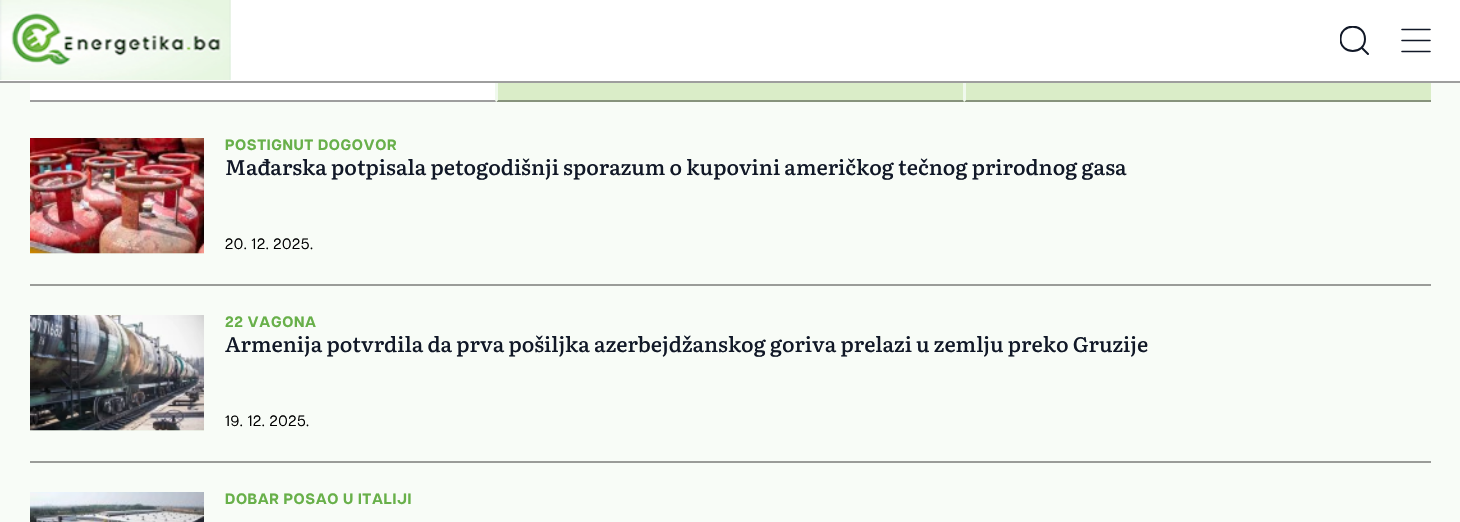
#include "include/core/SkBlurTypes.h"
#include "include/core/SkCanvas.h"
#include "include/core/SkData.h"
#include "include/core/SkFont.h"
#include "include/core/SkFontMgr.h"
#include "include/core/SkImage.h"
#include "include/core/SkMaskFilter.h"
#include "include/core/SkPaint.h"
#include "include/core/SkPathBuilder.h"
#include "include/core/SkTextBlob.h"
#include "include/effects/SkDashPathEffect.h"
#include "include/effects/SkGradientShader.h"
#include "include/utils/SkParsePath.h"

extern sk_sp<SkFontMgr> fontMgr;

static SkFont font(const char* family, int weight, float size, bool italic = false) {
    SkFontStyle style(weight, SkFontStyle::kNormal_Width,
        italic ? SkFontStyle::kItalic_Slant : SkFontStyle::kUpright_Slant);
    SkFont result(fontMgr->matchFamilyStyle(family, style), size);
    result.setSubpixel(true);
    return result;
}

static void drawLabel(SkCanvas* canvas, const char* s, float x, float y, const SkFont& font, SkColor color) {
    SkPaint ink(SkColor4f::FromColor(color));
    ink.setAntiAlias(true);
    canvas->drawString(s, x, y, font, ink);
}

static void drawTracked(SkCanvas* canvas, const char* s, float x, float y, const SkFont& font, const SkPaint& ink, float letter, float word) {
    std::vector<SkGlyphID> glyphs(font.countText(s, strlen(s), SkTextEncoding::kUTF8));
    std::vector<float> xs(glyphs.size());
    font.textToGlyphs(s, strlen(s), SkTextEncoding::kUTF8, glyphs);
    font.getXPos(glyphs, xs, x);
    float extra = 0;
    for (size_t i = 0; i < glyphs.size(); i++) {
        xs[i] += extra;
        extra += letter + word * (glyphs[i] == font.unicharToGlyph(' '));
    }
    canvas->drawTextBlob(SkTextBlob::MakeFromPosHGlyphs(glyphs, xs, y, font), 0, 0, ink);
}

static void fillRect(SkCanvas* canvas, float x, float y, float w, float h, SkColor color) {
    SkPaint ink(SkColor4f::FromColor(color));
    ink.setAntiAlias(true);
    canvas->drawRect(SkRect::MakeXYWH(x, y, w, h), ink);
}

static void drawPhoto(SkCanvas* canvas, const char* path, float x, float y, float w, float h) {
    auto image = SkImages::DeferredFromEncodedData(SkData::MakeFromFileName(path));
    canvas->drawImageRect(image, SkRect::MakeXYWH(x, y, w, h), SkSamplingOptions());
}

static SkPath parsePath(const char* data, bool evenOdd = false) {
    SkPath result = *SkParsePath::FromSVGString(data);
    if (evenOdd) result.setFillType(SkPathFillType::kEvenOdd);
    return result;
}

void draw(SkCanvas* canvas) {
    SkPaint paint;
    paint.setAntiAlias(true);
    canvas->clear(0xFFF8FCF7);
    fillRect(canvas, 30, 83, 467, 19, 0xFFFFFFFF);
    paint.setColor(0xFFF0F9ED);
    canvas->drawPath(parsePath("M496 51V102L495 100V51Z"), paint);
    fillRect(canvas, 497, 83, 468, 19, 0xFFDAEDC8);
    canvas->drawPath(parsePath("M964 51V102L963 100V51Z"), paint);
    paint.setColor(0x61000000);
    canvas->drawPath(parsePath("M964 102H496L498 100H963Z"), paint);
    paint.setColor(0xFFF0F9ED);
    canvas->drawPath(parsePath("M496 102V51H498V100Z"), paint);
    fillRect(canvas, 965, 83, 466, 18, 0xFFDAEDC8);
    paint.setColor(0xFF87937C);
    canvas->drawPath(parsePath("M1431 102H964L966 100H1431Z"), paint);
    paint.setColor(0xFFF0F9ED);
    canvas->drawPath(parsePath("M964 102V51H966V100Z"), paint);
    fillRect(canvas, 0, 0, 1460, 81, 0xFFFFFFFF);
    fillRect(canvas, 0, 81, 1460, 2, 0xFF9E9E9E);
    drawPhoto(canvas, "assets/img1.png", 0, 0, 231, 80);
    canvas->save();
    canvas->clipRect(SkRect::MakeXYWH(1340, 26, 30, 30));
    paint.setStroke(true);
    paint.setStrokeWidth(2);
    paint.setStrokeCap(SkPaint::kRound_Cap);
    paint.setStrokeJoin(SkPaint::kRound_Join);
    paint.setColor(0xFF111827);
    canvas->drawPath(parsePath("M1362 48L1368 54M1340.5 39C1340.5 55 1365 55 1365 39C1365 22.5 1340.5 22.5 1340.5 39Z"), paint);
    canvas->restore();
    paint.setStrokeWidth(1.6f);
    canvas->drawPath(parsePath("M1402 29.5H1430M1402 40.5H1430M1402 51.5H1430"), paint);
    paint.setStroke(false);
    paint.setColor(0x61000000);
    canvas->drawPath(parsePath("M496 102H30V100H495Z"), paint);
    fillRect(canvas, 30, 253, 174, 1, 0xFFF1F8EE);
    drawPhoto(canvas, "assets/img2.png", 30, 138, 174, 116);
    SkFont font1 = font("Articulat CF", 700, 15);
    paint.setColor(0xFF68B04A);
    drawTracked(canvas, "POSTIGNUT DOGOVOR", 225, 150, font1, paint, 0.6f, 0);
    SkFont font2 = font("Literata", 500, 21);
    drawLabel(canvas, "Mađarska potpisala petogodišnji sporazum o kupovini američkog tečnog prirodnog gasa", 225, 175, font2, 0xFF111827);
    SkFont font3 = font("Articulat CF", 400, 15);
    paint.setColor(0xFF000000);
    drawTracked(canvas, "20. 12. 2025.", 225, 249, font3, paint, 0.6f, 0);
    fillRect(canvas, 30, 284, 1401, 2, 0xFF9A9C99);
    fillRect(canvas, 30, 430, 174, 1, 0xFFF1F8EE);
    drawPhoto(canvas, "assets/img3.png", 30, 315, 174, 116);
    paint.setColor(0xFF68B04A);
    drawTracked(canvas, "22 VAGONA", 225, 327, font1, paint, 0.6f, 0);
    drawLabel(canvas, "Armenija potvrdila da prva pošiljka azerbejdžanskog goriva prelazi u zemlju preko Gruzije", 225, 352, font2, 0xFF111827);
    paint.setColor(0xFF000000);
    drawTracked(canvas, "19. 12. 2025.", 225, 426, font3, paint, 0.6f, 0);
    fillRect(canvas, 30, 461, 1401, 2, 0xFF9A9C99);
    drawPhoto(canvas, "assets/img4.png", 30, 492, 174, 30);
    paint.setColor(0xFF68B04A);
    drawTracked(canvas, "DOBAR POSAO U ITALIJI", 225, 504, font1, paint, 0.6f, 0);
}
